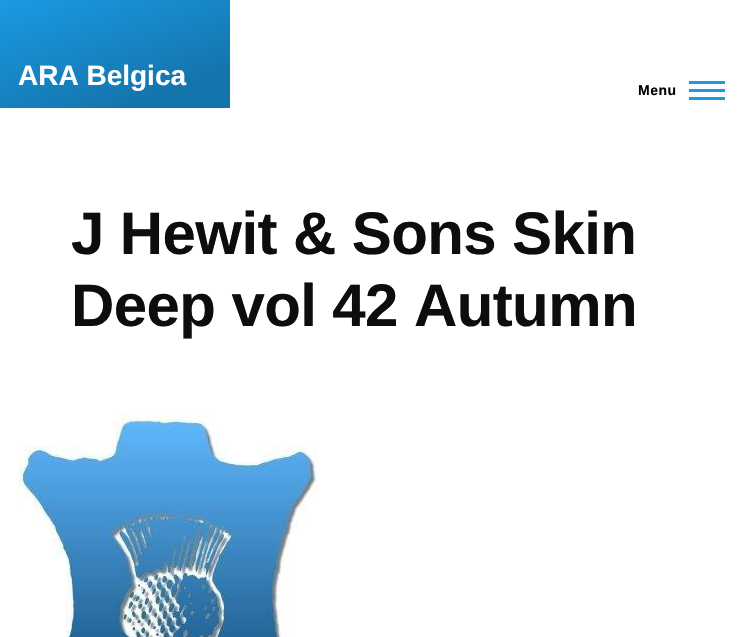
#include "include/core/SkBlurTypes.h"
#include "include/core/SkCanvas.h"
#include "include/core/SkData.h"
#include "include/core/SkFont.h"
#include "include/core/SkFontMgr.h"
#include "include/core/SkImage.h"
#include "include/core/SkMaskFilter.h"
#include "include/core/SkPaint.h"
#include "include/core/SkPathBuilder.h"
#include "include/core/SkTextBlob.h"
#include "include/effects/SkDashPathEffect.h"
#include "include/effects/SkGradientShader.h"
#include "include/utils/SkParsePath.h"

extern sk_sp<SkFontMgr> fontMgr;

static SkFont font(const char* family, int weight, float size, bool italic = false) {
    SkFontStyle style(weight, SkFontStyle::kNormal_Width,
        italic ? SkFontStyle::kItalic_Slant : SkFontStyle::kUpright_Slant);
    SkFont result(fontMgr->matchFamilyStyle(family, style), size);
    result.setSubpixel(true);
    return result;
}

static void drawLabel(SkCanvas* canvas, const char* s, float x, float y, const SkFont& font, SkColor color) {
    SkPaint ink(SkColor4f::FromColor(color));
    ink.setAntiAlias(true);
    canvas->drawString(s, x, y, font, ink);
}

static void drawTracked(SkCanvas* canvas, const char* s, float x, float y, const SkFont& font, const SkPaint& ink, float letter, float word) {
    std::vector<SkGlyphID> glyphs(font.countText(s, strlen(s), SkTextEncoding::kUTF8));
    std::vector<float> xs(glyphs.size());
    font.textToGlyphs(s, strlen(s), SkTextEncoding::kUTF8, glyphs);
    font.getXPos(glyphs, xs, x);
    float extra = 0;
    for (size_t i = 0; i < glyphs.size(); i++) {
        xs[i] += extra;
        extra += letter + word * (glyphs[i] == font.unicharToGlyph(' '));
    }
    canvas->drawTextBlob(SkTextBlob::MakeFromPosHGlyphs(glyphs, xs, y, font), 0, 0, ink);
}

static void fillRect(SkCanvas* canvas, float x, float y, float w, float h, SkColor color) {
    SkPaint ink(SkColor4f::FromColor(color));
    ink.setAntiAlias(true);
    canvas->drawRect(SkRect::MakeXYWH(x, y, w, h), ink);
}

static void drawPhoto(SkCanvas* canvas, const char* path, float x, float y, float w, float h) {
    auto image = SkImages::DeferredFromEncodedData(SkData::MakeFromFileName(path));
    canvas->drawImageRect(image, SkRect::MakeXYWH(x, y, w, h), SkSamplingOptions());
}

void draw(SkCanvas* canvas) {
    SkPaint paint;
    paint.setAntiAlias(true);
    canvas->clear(0xFFFFFFFF);
    {
        const SkColor colors[] = {0xFF1B9AE4, 0xFF1475AD};
        const float stops[] = {0, 0.79f};
        const SkPoint ends[] = {{84, -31}, {146, 139}};
        paint.setShader(SkGradientShader::MakeLinear(ends, colors, stops, 2, SkTileMode::kClamp));
        paint.setAlpha(255);
    }
    canvas->drawRect(SkRect::MakeXYWH(0, 0, 230, 108), paint);
    SkFont font1 = font("Liberation Sans", 700, 28);
    drawLabel(canvas, "ARA Belgica", 18, 85, font1, 0xFFFFFFFF);
    SkFont font2 = font("Liberation Sans", 700, 14);
    paint.setShader(nullptr);
    paint.setColor(0xFF000000);
    drawTracked(canvas, "Menu", 638, 95, font2, paint, 0.5f, 0);
    fillRect(canvas, 689, 89, 36, 3, 0xFF1B9AE4);
    fillRect(canvas, 689, 81, 36, 3, 0xFF1B9AE4);
    fillRect(canvas, 689, 97, 36, 3, 0xFF1B9AE4);
    SkFont font3 = font("Liberation Sans", 700, 60);
    paint.setColor(0xFF0B0D0F);
    drawTracked(canvas, "J Hewit & Sons Skin", 71, 254, font3, paint, -0.6f, 0);
    drawTracked(canvas, "Deep vol 42 Autumn", 71, 326, font3, paint, -0.6f, 0);
    drawPhoto(canvas, "assets/img1.png", 18, 414, 300, 223);
}
